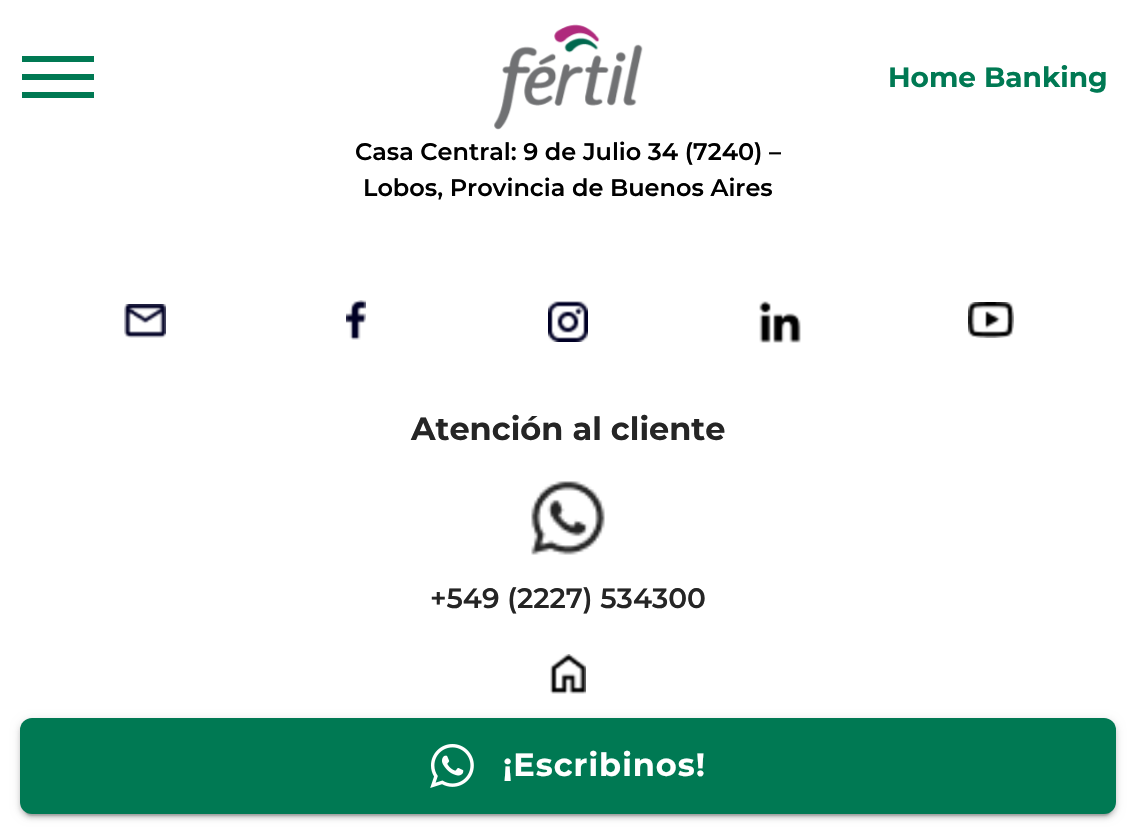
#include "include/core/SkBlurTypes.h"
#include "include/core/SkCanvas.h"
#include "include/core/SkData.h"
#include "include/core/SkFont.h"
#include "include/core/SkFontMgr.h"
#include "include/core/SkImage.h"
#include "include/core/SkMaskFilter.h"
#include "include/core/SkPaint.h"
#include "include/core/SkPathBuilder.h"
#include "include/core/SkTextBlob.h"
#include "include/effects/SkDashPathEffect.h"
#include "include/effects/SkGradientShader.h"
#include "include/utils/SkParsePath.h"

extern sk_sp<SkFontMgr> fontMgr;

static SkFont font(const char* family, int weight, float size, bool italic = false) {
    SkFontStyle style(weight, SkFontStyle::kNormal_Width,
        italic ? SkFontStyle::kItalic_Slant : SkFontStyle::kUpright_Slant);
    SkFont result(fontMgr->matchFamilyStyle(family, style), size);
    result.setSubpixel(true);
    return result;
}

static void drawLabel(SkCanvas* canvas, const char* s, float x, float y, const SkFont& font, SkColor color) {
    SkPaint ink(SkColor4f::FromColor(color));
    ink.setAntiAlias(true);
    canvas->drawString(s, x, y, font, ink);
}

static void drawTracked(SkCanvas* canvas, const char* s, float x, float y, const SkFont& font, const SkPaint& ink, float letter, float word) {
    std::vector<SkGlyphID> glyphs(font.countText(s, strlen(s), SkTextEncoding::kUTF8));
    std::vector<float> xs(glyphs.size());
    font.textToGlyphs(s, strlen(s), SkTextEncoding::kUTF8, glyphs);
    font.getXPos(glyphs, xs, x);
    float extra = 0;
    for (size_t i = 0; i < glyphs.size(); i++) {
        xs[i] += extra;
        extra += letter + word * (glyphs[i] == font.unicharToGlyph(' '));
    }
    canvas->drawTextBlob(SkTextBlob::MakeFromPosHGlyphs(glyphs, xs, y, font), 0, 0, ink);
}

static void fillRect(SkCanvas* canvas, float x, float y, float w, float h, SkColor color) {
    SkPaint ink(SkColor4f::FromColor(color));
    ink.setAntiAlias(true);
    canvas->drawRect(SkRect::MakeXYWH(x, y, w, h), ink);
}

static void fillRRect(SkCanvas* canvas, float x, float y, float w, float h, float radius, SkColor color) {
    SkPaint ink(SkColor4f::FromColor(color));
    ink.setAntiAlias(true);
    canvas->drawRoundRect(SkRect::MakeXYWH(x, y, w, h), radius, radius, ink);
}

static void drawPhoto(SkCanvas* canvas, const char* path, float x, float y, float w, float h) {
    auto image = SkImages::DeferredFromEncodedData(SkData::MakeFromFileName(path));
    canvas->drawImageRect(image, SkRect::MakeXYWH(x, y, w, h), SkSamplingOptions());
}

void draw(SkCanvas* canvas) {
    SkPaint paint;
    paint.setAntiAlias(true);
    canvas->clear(0xFFFFFFFF);
    fillRect(canvas, 22, 56, 72, 6, 0xFF007953);
    fillRect(canvas, 22, 74, 72, 6, 0xFF007953);
    fillRect(canvas, 22, 92, 72, 6, 0xFF007953);
    drawPhoto(canvas, "assets/img1.png", 494, 24, 149, 106);
    SkFont font1 = font("Montserrat", 700, 28);
    drawLabel(canvas, "Home Banking", 888, 87, font1, 0xFF007953);
    SkFont font2 = font("Montserrat", 600, 24);
    drawLabel(canvas, "Casa Central: 9 de Julio 34 (7240) –", 355, 160, font2, 0xFF000000);
    drawLabel(canvas, "Lobos, Provincia de Buenos Aires", 363, 196, font2, 0xFF000000);
    drawPhoto(canvas, "assets/img2.png", 124, 304, 42, 34);
    drawPhoto(canvas, "assets/img3.png", 346, 300, 20, 40);
    drawPhoto(canvas, "assets/img4.png", 548, 301, 40, 41);
    drawPhoto(canvas, "assets/img5.png", 759, 301, 42, 42);
    drawPhoto(canvas, "assets/img6.png", 968, 302, 46, 36);
    SkFont font3 = font("Montserrat", 700, 32);
    drawLabel(canvas, "Atención al cliente", 411, 440, font3, 0xFF252525);
    drawPhoto(canvas, "assets/img7.png", 531, 481, 74, 74);
    SkFont font4 = font("Montserrat", 600, 28);
    drawLabel(canvas, "+549 (2227) 534300", 430, 608, font4, 0xFF252525);
    drawPhoto(canvas, "assets/img8.png", 550, 654, 36, 40);
    paint.setColor(0x33000000);
    paint.setMaskFilter(SkMaskFilter::MakeBlur(kNormal_SkBlurStyle, 1));
    canvas->drawRoundRect(SkRect::MakeXYWH(24, 728, 1088, 88), 8, 8, paint);
    paint.setMaskFilter(nullptr);
    paint.setColor(0x1F000000);
    paint.setMaskFilter(SkMaskFilter::MakeBlur(kNormal_SkBlurStyle, 5));
    canvas->drawRoundRect(SkRect::MakeXYWH(20, 720, 1096, 96), 12, 12, paint);
    paint.setMaskFilter(nullptr);
    paint.setColor(0x24000000);
    paint.setMaskFilter(SkMaskFilter::MakeBlur(kNormal_SkBlurStyle, 2));
    canvas->drawRoundRect(SkRect::MakeXYWH(20, 722, 1096, 96), 12, 12, paint);
    paint.setMaskFilter(nullptr);
    fillRRect(canvas, 20, 718, 1096, 96, 12, 0xFF007953);
    drawPhoto(canvas, "assets/img9.png", 430, 744, 44, 44);
    paint.setColor(0xFFFFFFFF);
    drawTracked(canvas, "¡Escribinos!", 503, 776, font3, paint, 1, 0);
}
